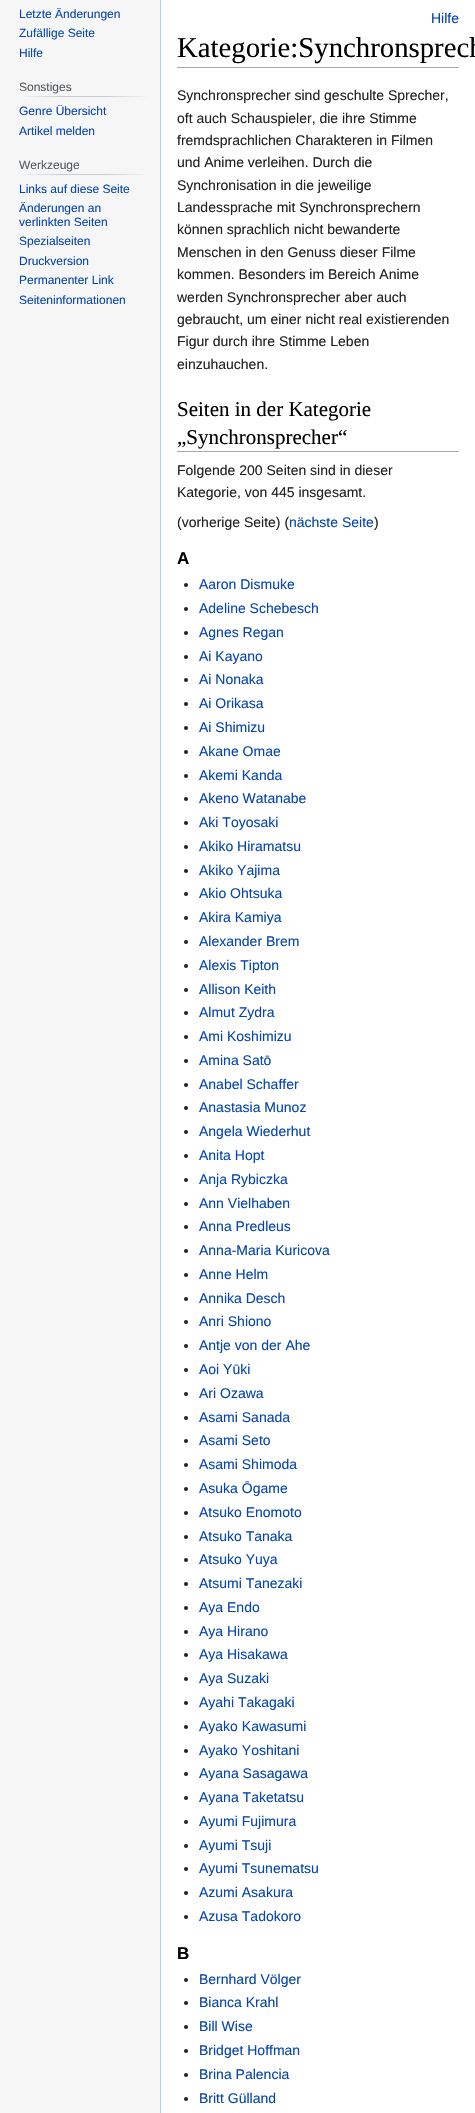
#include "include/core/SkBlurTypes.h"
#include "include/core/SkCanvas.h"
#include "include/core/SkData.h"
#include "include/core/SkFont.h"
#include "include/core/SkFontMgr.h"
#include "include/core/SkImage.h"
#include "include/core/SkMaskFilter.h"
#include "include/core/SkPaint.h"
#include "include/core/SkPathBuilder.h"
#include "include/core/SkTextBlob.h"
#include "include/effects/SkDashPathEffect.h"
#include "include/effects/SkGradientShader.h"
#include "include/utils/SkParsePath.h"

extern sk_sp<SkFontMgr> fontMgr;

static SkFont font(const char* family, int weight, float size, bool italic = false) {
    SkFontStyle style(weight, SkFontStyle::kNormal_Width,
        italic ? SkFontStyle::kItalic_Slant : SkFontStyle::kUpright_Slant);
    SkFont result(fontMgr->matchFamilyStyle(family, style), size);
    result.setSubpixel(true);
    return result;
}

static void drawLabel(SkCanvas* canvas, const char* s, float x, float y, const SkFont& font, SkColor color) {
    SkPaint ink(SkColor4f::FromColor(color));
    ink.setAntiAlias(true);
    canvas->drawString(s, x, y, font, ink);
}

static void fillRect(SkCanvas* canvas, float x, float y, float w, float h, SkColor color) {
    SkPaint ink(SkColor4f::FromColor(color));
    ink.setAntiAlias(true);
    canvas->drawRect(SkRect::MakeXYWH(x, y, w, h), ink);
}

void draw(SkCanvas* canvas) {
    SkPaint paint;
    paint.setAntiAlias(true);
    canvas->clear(0xFFF6F6F6);
    SkFont font1 = font("Liberation Sans", 400, 12);
    drawLabel(canvas, "Letzte Änderungen", 19, 18, font1, 0xFF0645AD);
    drawLabel(canvas, "Zufällige Seite", 19, 37, font1, 0xFF0645AD);
    drawLabel(canvas, "Hilfe", 19, 57, font1, 0xFF0645AD);
    {
        const SkColor colors[] = {0xFFF6F6F6, 0xFFC8CCD1, 0xFFC8CCD1, 0xFFF6F6F6};
        const float stops[] = {0, 0.33f, 0.66f, 1};
        const SkPoint ends[] = {{19, 97}, {150, 97}};
        paint.setShader(SkGradientShader::MakeLinear(ends, colors, stops, 4, SkTileMode::kClamp));
        paint.setAlpha(255);
    }
    canvas->drawRect(SkRect::MakeXYWH(19, 96, 131, 1), paint);
    drawLabel(canvas, "Sonstiges", 19, 91, font1, 0xFF54595D);
    drawLabel(canvas, "Genre Übersicht", 19, 115, font1, 0xFF0645AD);
    drawLabel(canvas, "Artikel melden", 19, 135, font1, 0xFF0645AD);
    {
        const SkColor colors[] = {0xFFF6F6F6, 0xFFC8CCD1, 0xFFC8CCD1, 0xFFF6F6F6};
        const float stops[] = {0, 0.33f, 0.66f, 1};
        const SkPoint ends[] = {{19, 175}, {150, 175}};
        paint.setShader(SkGradientShader::MakeLinear(ends, colors, stops, 4, SkTileMode::kClamp));
        paint.setAlpha(255);
    }
    canvas->drawRect(SkRect::MakeXYWH(19, 174, 131, 1), paint);
    drawLabel(canvas, "Werkzeuge", 19, 169, font1, 0xFF54595D);
    drawLabel(canvas, "Links auf diese Seite", 19, 193, font1, 0xFF0645AD);
    drawLabel(canvas, "Änderungen an", 19, 212, font1, 0xFF0645AD);
    drawLabel(canvas, "verlinkten Seiten", 19, 226, font1, 0xFF0645AD);
    drawLabel(canvas, "Spezialseiten", 19, 245, font1, 0xFF0645AD);
    drawLabel(canvas, "Druckversion", 19, 265, font1, 0xFF0645AD);
    drawLabel(canvas, "Permanenter Link", 19, 284, font1, 0xFF0645AD);
    drawLabel(canvas, "Seiteninformationen", 19, 304, font1, 0xFF0645AD);
    fillRect(canvas, 161, 0, 314, 2113, 0xFFFFFFFF);
    fillRect(canvas, 160, 0, 1, 2113, 0xFFA7D7F9);
    SkFont font2 = font("Liberation Sans", 400, 14);
    drawLabel(canvas, "Hilfe", 431, 23, font2, 0xFF0645AD);
    fillRect(canvas, 177, 67, 282, 1, 0xFFA2A9B1);
    SkFont font3 = font("Liberation Serif", 400, 28.75f);
    drawLabel(canvas, "Kategorie:Synchronsprech", 177, 57, font3, 0xFF000000);
    drawLabel(canvas, "Synchronsprecher sind geschulte Sprecher,", 177, 100, font2, 0xFF202122);
    drawLabel(canvas, "oft auch Schauspieler, die ihre Stimme", 177, 123, font2, 0xFF202122);
    drawLabel(canvas, "fremdsprachlichen Charakteren in Filmen", 177, 145, font2, 0xFF202122);
    drawLabel(canvas, "und Anime verleihen. Durch die", 177, 167, font2, 0xFF202122);
    drawLabel(canvas, "Synchronisation in die jeweilige", 177, 190, font2, 0xFF202122);
    drawLabel(canvas, "Landessprache mit Synchronsprechern", 177, 212, font2, 0xFF202122);
    drawLabel(canvas, "können sprachlich nicht bewanderte", 177, 234, font2, 0xFF202122);
    drawLabel(canvas, "Menschen in den Genuss dieser Filme", 177, 257, font2, 0xFF202122);
    drawLabel(canvas, "kommen. Besonders im Bereich Anime", 177, 279, font2, 0xFF202122);
    drawLabel(canvas, "werden Synchronsprecher aber auch", 177, 302, font2, 0xFF202122);
    drawLabel(canvas, "gebraucht, um einer nicht real existierenden", 177, 324, font2, 0xFF202122);
    drawLabel(canvas, "Figur durch ihre Stimme Leben", 177, 346, font2, 0xFF202122);
    drawLabel(canvas, "einzuhauchen.", 177, 369, font2, 0xFF202122);
    fillRect(canvas, 177, 451, 282, 1, 0xFFA2A9B1);
    SkFont font4 = font("Liberation Serif", 400, 21);
    drawLabel(canvas, "Seiten in der Kategorie", 177, 416, font4, 0xFF000000);
    drawLabel(canvas, "„Synchronsprecher“", 177, 444, font4, 0xFF000000);
    drawLabel(canvas, "Folgende 200 Seiten sind in dieser", 177, 475, font2, 0xFF202122);
    drawLabel(canvas, "Kategorie, von 445 insgesamt.", 177, 497, font2, 0xFF202122);
    drawLabel(canvas, "(vorherige Seite) (", 177, 527, font2, 0xFF202122);
    drawLabel(canvas, "nächste Seite", 289, 527, font2, 0xFF0645AD);
    drawLabel(canvas, ")", 374, 527, font2, 0xFF202122);
    SkFont font5 = font("Liberation Sans", 700, 17);
    drawLabel(canvas, "A", 177, 564, font5, 0xFF000000);
    paint.setShader(nullptr);
    paint.setColor(0xFF202122);
    canvas->drawCircle(186, 585, 2, paint);
    drawLabel(canvas, "Aaron Dismuke", 199, 589, font2, 0xFF0645AD);
    canvas->drawCircle(186, 609, 2, paint);
    drawLabel(canvas, "Adeline Schebesch", 199, 613, font2, 0xFF0645AD);
    canvas->drawCircle(186, 633, 2, paint);
    drawLabel(canvas, "Agnes Regan", 199, 637, font2, 0xFF0645AD);
    canvas->drawCircle(186, 657, 2, paint);
    drawLabel(canvas, "Ai Kayano", 199, 661, font2, 0xFF0645AD);
    canvas->drawCircle(186, 680, 2, paint);
    drawLabel(canvas, "Ai Nonaka", 199, 684, font2, 0xFF0645AD);
    canvas->drawCircle(186, 704, 2, paint);
    drawLabel(canvas, "Ai Orikasa", 199, 708, font2, 0xFF0645AD);
    canvas->drawCircle(186, 728, 2, paint);
    drawLabel(canvas, "Ai Shimizu", 199, 732, font2, 0xFF0645AD);
    canvas->drawCircle(186, 752, 2, paint);
    drawLabel(canvas, "Akane Omae", 199, 756, font2, 0xFF0645AD);
    canvas->drawCircle(186, 776, 2, paint);
    drawLabel(canvas, "Akemi Kanda", 199, 780, font2, 0xFF0645AD);
    canvas->drawCircle(186, 799, 2, paint);
    drawLabel(canvas, "Akeno Watanabe", 199, 803, font2, 0xFF0645AD);
    canvas->drawCircle(186, 823, 2, paint);
    drawLabel(canvas, "Aki Toyosaki", 199, 827, font2, 0xFF0645AD);
    canvas->drawCircle(186, 847, 2, paint);
    drawLabel(canvas, "Akiko Hiramatsu", 199, 851, font2, 0xFF0645AD);
    canvas->drawCircle(186, 871, 2, paint);
    drawLabel(canvas, "Akiko Yajima", 199, 875, font2, 0xFF0645AD);
    canvas->drawCircle(186, 894, 2, paint);
    drawLabel(canvas, "Akio Ohtsuka", 199, 898, font2, 0xFF0645AD);
    canvas->drawCircle(186, 918, 2, paint);
    drawLabel(canvas, "Akira Kamiya", 199, 922, font2, 0xFF0645AD);
    canvas->drawCircle(186, 942, 2, paint);
    drawLabel(canvas, "Alexander Brem", 199, 946, font2, 0xFF0645AD);
    canvas->drawCircle(186, 966, 2, paint);
    drawLabel(canvas, "Alexis Tipton", 199, 970, font2, 0xFF0645AD);
    canvas->drawCircle(186, 990, 2, paint);
    drawLabel(canvas, "Allison Keith", 199, 994, font2, 0xFF0645AD);
    canvas->drawCircle(186, 1013, 2, paint);
    drawLabel(canvas, "Almut Zydra", 199, 1017, font2, 0xFF0645AD);
    canvas->drawCircle(186, 1037, 2, paint);
    drawLabel(canvas, "Ami Koshimizu", 199, 1041, font2, 0xFF0645AD);
    canvas->drawCircle(186, 1061, 2, paint);
    drawLabel(canvas, "Amina Satō", 199, 1065, font2, 0xFF0645AD);
    canvas->drawCircle(186, 1085, 2, paint);
    drawLabel(canvas, "Anabel Schaffer", 199, 1089, font2, 0xFF0645AD);
    canvas->drawCircle(186, 1108, 2, paint);
    drawLabel(canvas, "Anastasia Munoz", 199, 1112, font2, 0xFF0645AD);
    canvas->drawCircle(186, 1132, 2, paint);
    drawLabel(canvas, "Angela Wiederhut", 199, 1136, font2, 0xFF0645AD);
    canvas->drawCircle(186, 1156, 2, paint);
    drawLabel(canvas, "Anita Hopt", 199, 1160, font2, 0xFF0645AD);
    canvas->drawCircle(186, 1180, 2, paint);
    drawLabel(canvas, "Anja Rybiczka", 199, 1184, font2, 0xFF0645AD);
    canvas->drawCircle(186, 1204, 2, paint);
    drawLabel(canvas, "Ann Vielhaben", 199, 1208, font2, 0xFF0645AD);
    canvas->drawCircle(186, 1227, 2, paint);
    drawLabel(canvas, "Anna Predleus", 199, 1231, font2, 0xFF0645AD);
    canvas->drawCircle(186, 1251, 2, paint);
    drawLabel(canvas, "Anna-Maria Kuricova", 199, 1255, font2, 0xFF0645AD);
    canvas->drawCircle(186, 1275, 2, paint);
    drawLabel(canvas, "Anne Helm", 199, 1279, font2, 0xFF0645AD);
    canvas->drawCircle(186, 1299, 2, paint);
    drawLabel(canvas, "Annika Desch", 199, 1303, font2, 0xFF0645AD);
    canvas->drawCircle(186, 1322, 2, paint);
    drawLabel(canvas, "Anri Shiono", 199, 1326, font2, 0xFF0645AD);
    canvas->drawCircle(186, 1346, 2, paint);
    drawLabel(canvas, "Antje von der Ahe", 199, 1350, font2, 0xFF0645AD);
    canvas->drawCircle(186, 1370, 2, paint);
    drawLabel(canvas, "Aoi Yūki", 199, 1374, font2, 0xFF0645AD);
    canvas->drawCircle(186, 1394, 2, paint);
    drawLabel(canvas, "Ari Ozawa", 199, 1398, font2, 0xFF0645AD);
    canvas->drawCircle(186, 1418, 2, paint);
    drawLabel(canvas, "Asami Sanada", 199, 1422, font2, 0xFF0645AD);
    canvas->drawCircle(186, 1441, 2, paint);
    drawLabel(canvas, "Asami Seto", 199, 1445, font2, 0xFF0645AD);
    canvas->drawCircle(186, 1465, 2, paint);
    drawLabel(canvas, "Asami Shimoda", 199, 1469, font2, 0xFF0645AD);
    canvas->drawCircle(186, 1489, 2, paint);
    drawLabel(canvas, "Asuka Ōgame", 199, 1493, font2, 0xFF0645AD);
    canvas->drawCircle(186, 1513, 2, paint);
    drawLabel(canvas, "Atsuko Enomoto", 199, 1517, font2, 0xFF0645AD);
    canvas->drawCircle(186, 1537, 2, paint);
    drawLabel(canvas, "Atsuko Tanaka", 199, 1541, font2, 0xFF0645AD);
    canvas->drawCircle(186, 1560, 2, paint);
    drawLabel(canvas, "Atsuko Yuya", 199, 1564, font2, 0xFF0645AD);
    canvas->drawCircle(186, 1584, 2, paint);
    drawLabel(canvas, "Atsumi Tanezaki", 199, 1588, font2, 0xFF0645AD);
    canvas->drawCircle(186, 1608, 2, paint);
    drawLabel(canvas, "Aya Endo", 199, 1612, font2, 0xFF0645AD);
    canvas->drawCircle(186, 1632, 2, paint);
    drawLabel(canvas, "Aya Hirano", 199, 1636, font2, 0xFF0645AD);
    canvas->drawCircle(186, 1655, 2, paint);
    drawLabel(canvas, "Aya Hisakawa", 199, 1659, font2, 0xFF0645AD);
    canvas->drawCircle(186, 1679, 2, paint);
    drawLabel(canvas, "Aya Suzaki", 199, 1683, font2, 0xFF0645AD);
    canvas->drawCircle(186, 1703, 2, paint);
    drawLabel(canvas, "Ayahi Takagaki", 199, 1707, font2, 0xFF0645AD);
    canvas->drawCircle(186, 1727, 2, paint);
    drawLabel(canvas, "Ayako Kawasumi", 199, 1731, font2, 0xFF0645AD);
    canvas->drawCircle(186, 1751, 2, paint);
    drawLabel(canvas, "Ayako Yoshitani", 199, 1755, font2, 0xFF0645AD);
    canvas->drawCircle(186, 1774, 2, paint);
    drawLabel(canvas, "Ayana Sasagawa", 199, 1778, font2, 0xFF0645AD);
    canvas->drawCircle(186, 1798, 2, paint);
    drawLabel(canvas, "Ayana Taketatsu", 199, 1802, font2, 0xFF0645AD);
    canvas->drawCircle(186, 1822, 2, paint);
    drawLabel(canvas, "Ayumi Fujimura", 199, 1826, font2, 0xFF0645AD);
    canvas->drawCircle(186, 1846, 2, paint);
    drawLabel(canvas, "Ayumi Tsuji", 199, 1850, font2, 0xFF0645AD);
    canvas->drawCircle(186, 1869, 2, paint);
    drawLabel(canvas, "Ayumi Tsunematsu", 199, 1873, font2, 0xFF0645AD);
    canvas->drawCircle(186, 1893, 2, paint);
    drawLabel(canvas, "Azumi Asakura", 199, 1897, font2, 0xFF0645AD);
    canvas->drawCircle(186, 1917, 2, paint);
    drawLabel(canvas, "Azusa Tadokoro", 199, 1921, font2, 0xFF0645AD);
    drawLabel(canvas, "B", 177, 1959, font5, 0xFF000000);
    canvas->drawCircle(186, 1980, 2, paint);
    drawLabel(canvas, "Bernhard Völger", 199, 1984, font2, 0xFF0645AD);
    canvas->drawCircle(186, 2003, 2, paint);
    drawLabel(canvas, "Bianca Krahl", 199, 2007, font2, 0xFF0645AD);
    canvas->drawCircle(186, 2027, 2, paint);
    drawLabel(canvas, "Bill Wise", 199, 2031, font2, 0xFF0645AD);
    canvas->drawCircle(186, 2051, 2, paint);
    drawLabel(canvas, "Bridget Hoffman", 199, 2055, font2, 0xFF0645AD);
    canvas->drawCircle(186, 2075, 2, paint);
    drawLabel(canvas, "Brina Palencia", 199, 2079, font2, 0xFF0645AD);
    canvas->drawCircle(186, 2099, 2, paint);
    drawLabel(canvas, "Britt Gülland", 199, 2103, font2, 0xFF0645AD);
}
